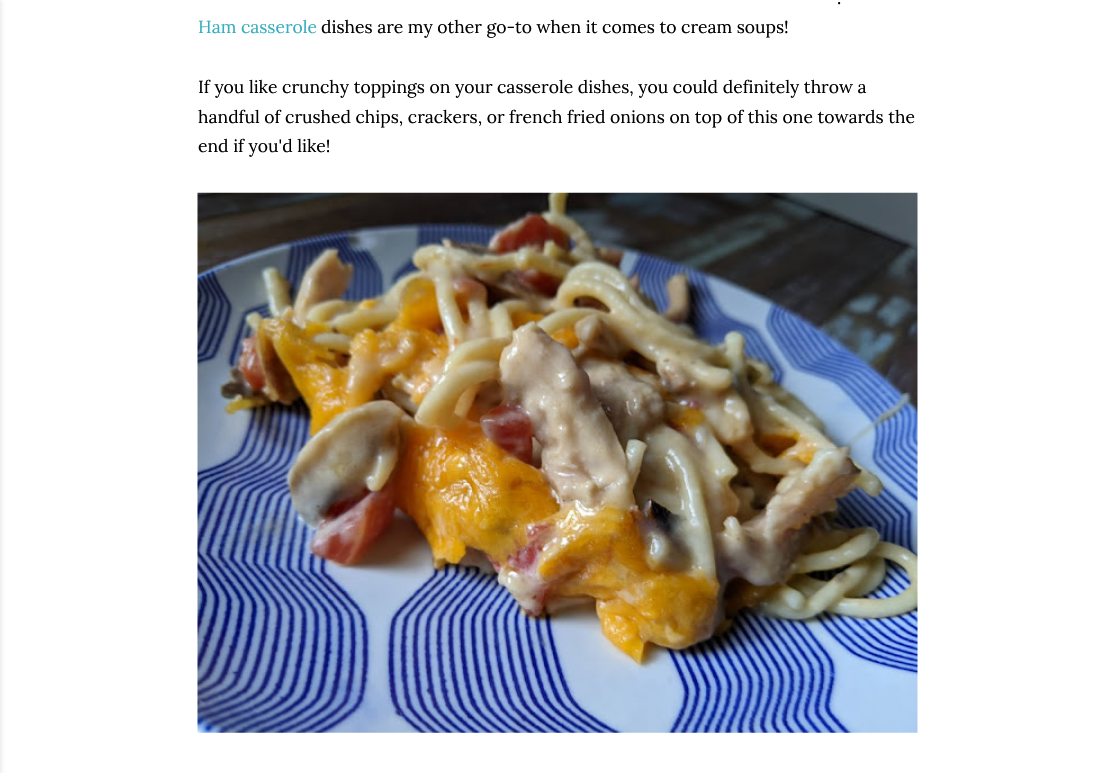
#include "include/core/SkBlurTypes.h"
#include "include/core/SkCanvas.h"
#include "include/core/SkData.h"
#include "include/core/SkFont.h"
#include "include/core/SkFontMgr.h"
#include "include/core/SkImage.h"
#include "include/core/SkMaskFilter.h"
#include "include/core/SkPaint.h"
#include "include/core/SkPathBuilder.h"
#include "include/core/SkTextBlob.h"
#include "include/effects/SkDashPathEffect.h"
#include "include/effects/SkGradientShader.h"
#include "include/utils/SkParsePath.h"

extern sk_sp<SkFontMgr> fontMgr;

static SkFont font(const char* family, int weight, float size, bool italic = false) {
    SkFontStyle style(weight, SkFontStyle::kNormal_Width,
        italic ? SkFontStyle::kItalic_Slant : SkFontStyle::kUpright_Slant);
    SkFont result(fontMgr->matchFamilyStyle(family, style), size);
    result.setSubpixel(true);
    return result;
}

static void drawLabel(SkCanvas* canvas, const char* s, float x, float y, const SkFont& font, SkColor color) {
    SkPaint ink(SkColor4f::FromColor(color));
    ink.setAntiAlias(true);
    canvas->drawString(s, x, y, font, ink);
}

static void drawPhoto(SkCanvas* canvas, const char* path, float x, float y, float w, float h) {
    auto image = SkImages::DeferredFromEncodedData(SkData::MakeFromFileName(path));
    canvas->drawImageRect(image, SkRect::MakeXYWH(x, y, w, h), SkSamplingOptions());
}

void draw(SkCanvas* canvas) {
    SkPaint paint;
    paint.setAntiAlias(true);
    canvas->clear(0xFFFFFFFF);
    paint.setColor(0x1A000000);
    paint.setMaskFilter(SkMaskFilter::MakeBlur(kNormal_SkBlurStyle, 2));
    canvas->drawRect(SkRect::MakeXYWH(-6, 0, 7, 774), paint);
    paint.setMaskFilter(nullptr);
    SkFont font1 = font("Lora", 400, 17.5f);
    drawLabel(canvas, ".", 837, 4, font1, 0xFF000000);
    drawLabel(canvas, "Ham casserole", 198, 33, font1, 0xFF37AEBE);
    drawLabel(canvas, "dishes are my other go-to when it comes to cream soups!", 321, 33, font1, 0xFF000000);
    drawLabel(canvas, "If you like crunchy toppings on your casserole dishes, you could definitely throw a", 198, 93, font1, 0xFF000000);
    drawLabel(canvas, "handful of crushed chips, crackers, or french fried onions on top of this one towards the", 198, 123, font1, 0xFF000000);
    drawLabel(canvas, "end if you'd like!", 198, 152, font1, 0xFF000000);
    drawPhoto(canvas, "assets/img1.png", 197, 192, 721, 541);
}
